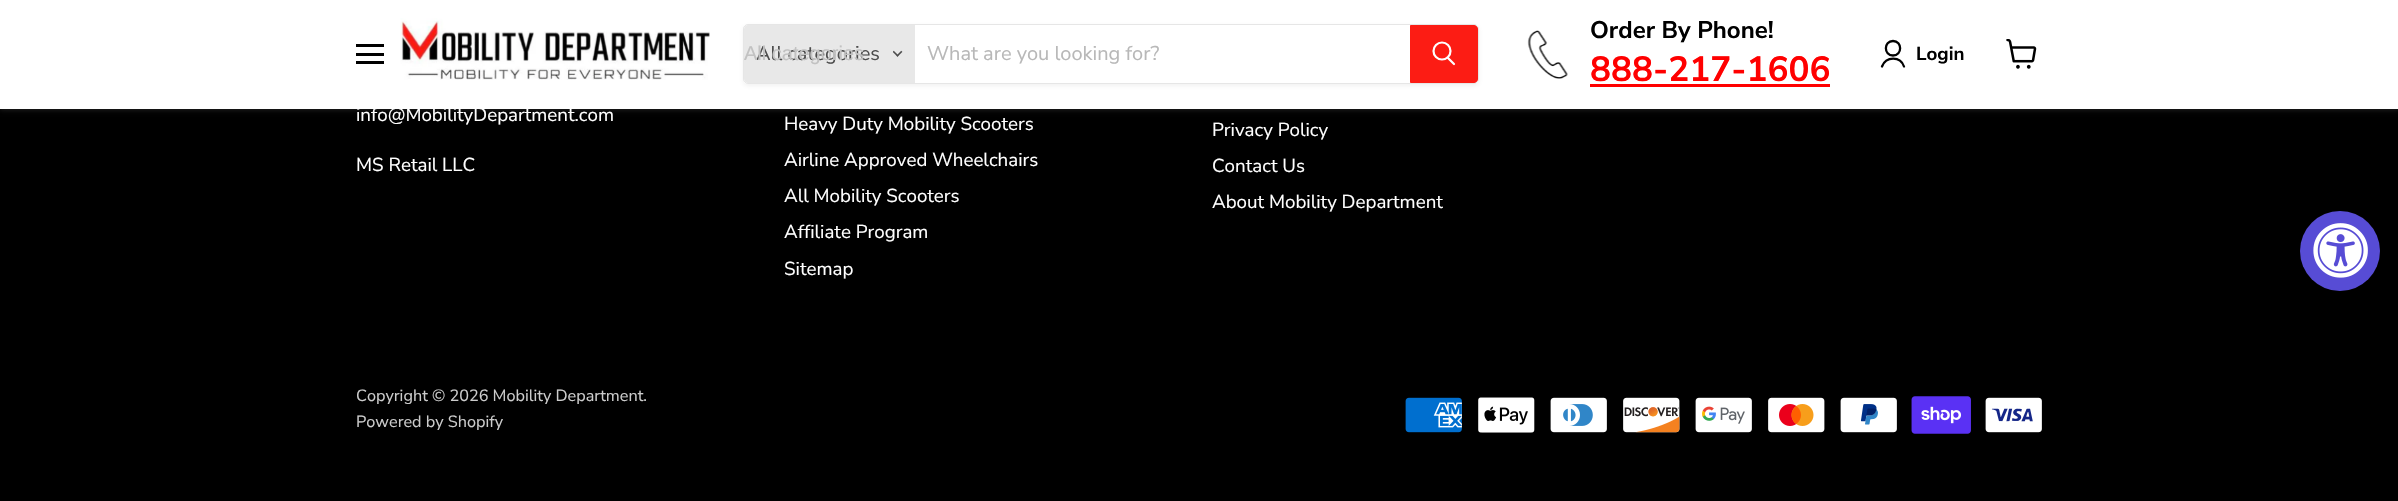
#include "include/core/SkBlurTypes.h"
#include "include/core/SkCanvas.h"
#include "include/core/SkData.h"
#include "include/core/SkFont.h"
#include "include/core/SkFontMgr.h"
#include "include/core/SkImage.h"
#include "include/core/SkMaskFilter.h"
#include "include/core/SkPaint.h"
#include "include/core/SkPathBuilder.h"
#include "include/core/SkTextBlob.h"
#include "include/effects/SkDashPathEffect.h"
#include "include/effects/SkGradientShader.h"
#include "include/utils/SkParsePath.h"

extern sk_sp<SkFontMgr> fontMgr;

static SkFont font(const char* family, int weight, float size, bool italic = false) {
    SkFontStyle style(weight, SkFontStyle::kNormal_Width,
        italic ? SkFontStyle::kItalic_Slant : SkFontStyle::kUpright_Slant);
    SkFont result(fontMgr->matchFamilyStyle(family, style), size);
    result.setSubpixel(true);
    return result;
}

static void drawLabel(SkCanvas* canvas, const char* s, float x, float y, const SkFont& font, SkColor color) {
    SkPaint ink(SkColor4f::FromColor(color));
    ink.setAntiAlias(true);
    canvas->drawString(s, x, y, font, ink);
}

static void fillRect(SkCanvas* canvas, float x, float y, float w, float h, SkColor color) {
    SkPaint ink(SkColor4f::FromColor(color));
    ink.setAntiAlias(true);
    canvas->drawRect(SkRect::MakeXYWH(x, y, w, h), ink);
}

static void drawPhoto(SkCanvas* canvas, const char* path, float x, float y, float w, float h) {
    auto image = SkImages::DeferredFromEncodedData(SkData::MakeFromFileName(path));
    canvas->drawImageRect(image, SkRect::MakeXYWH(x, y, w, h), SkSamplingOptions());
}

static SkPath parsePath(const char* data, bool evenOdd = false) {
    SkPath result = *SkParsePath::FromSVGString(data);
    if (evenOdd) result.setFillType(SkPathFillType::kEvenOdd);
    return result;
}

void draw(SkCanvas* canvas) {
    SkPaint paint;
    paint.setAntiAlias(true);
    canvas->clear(0xFF000000);
    paint.setColor(0x40808080);
    paint.setMaskFilter(SkMaskFilter::MakeBlur(kNormal_SkBlurStyle, 2.5f));
    canvas->drawRect(SkRect::MakeXYWH(0, 1, 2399, 109), paint);
    paint.setMaskFilter(nullptr);
    fillRect(canvas, 0, 0, 2398, 109, 0xFFFFFFFF);
    fillRect(canvas, 356, 44, 28, 3, 0xFF000000);
    fillRect(canvas, 356, 53, 28, 3, 0xFF000000);
    fillRect(canvas, 356, 61, 28, 3, 0xFF000000);
    drawPhoto(canvas, "assets/img1.png", 400, 18, 310, 62);
    canvas->save();
    canvas->clipPath(parsePath("M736 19H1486V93H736ZM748 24H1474C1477 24 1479 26 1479 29V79C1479 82 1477 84 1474 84H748C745 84 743 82 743 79V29C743 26 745 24 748 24Z", true), true);
    paint.setColor(0x1C808080);
    paint.setMaskFilter(SkMaskFilter::MakeBlur(kNormal_SkBlurStyle, 2));
    canvas->drawRoundRect(SkRect::MakeXYWH(743, 26, 736, 60), 5, 5, paint);
    paint.setMaskFilter(nullptr);
    canvas->restore();
    paint.setStroke(true);
    paint.setStrokeWidth(1);
    paint.setColor(0x33808080);
    canvas->drawRoundRect(SkRect::MakeXYWH(743.5f, 24.5f, 735, 59), 4.5f, 4.5f, paint);
    paint.setStroke(false);
    paint.setColor(0xFFE8E8E8);
    canvas->drawPath(parsePath("M748 25H915V83H748C746 83 744 81 744 79V29C744 27 746 25 748 25Z"), paint);
    SkFont font1 = font("Nunito Sans", 400, 20);
    drawLabel(canvas, "All categories", 756, 60, font1, 0xFF4D4D4D);
    SkFont font2 = font("Liberation Sans", 400, 20);
    drawLabel(canvas, "All categories", 744, 60, font2, 0xFFC2C2C2);
    drawPhoto(canvas, "assets/img2.png", 893, 50, 10, 7);
    drawLabel(canvas, "What are you looking for?", 927, 60, font1, 0xFFB8B8B8);
    paint.setColor(0xFFFC1C14);
    canvas->drawPath(parsePath("M1410.5 25.5H1474C1476 25.5 1477.5 27 1477.5 29V79C1477.5 81 1476 82.5 1474 82.5H1410.5Z"), paint);
    paint.setStroke(true);
    canvas->drawPath(parsePath("M1410.5 25.5H1474C1476 25.5 1477.5 27 1477.5 29V79C1477.5 81 1476 82.5 1474 82.5H1410.5Z"), paint);
    paint.setStrokeWidth(2.2f);
    paint.setStrokeCap(SkPaint::kRound_Cap);
    paint.setColor(0xFFFFFFFF);
    canvas->drawPath(parsePath("M1454 64L1448 58"), paint);
    paint.setStrokeCap(SkPaint::kButt_Cap);
    canvas->drawCircle(1442, 51, 8.5f, paint);
    drawPhoto(canvas, "assets/img3.png", 1527, 30, 41, 49);
    SkFont font3 = font("Nunito Sans", 700, 24);
    drawLabel(canvas, "Order By Phone!", 1590, 38, font3, 0xFF000000);
    SkFont font4 = font("Nunito Sans", 700, 35);
    drawLabel(canvas, "888-217-1606", 1590, 81, font4, 0xFFFF0000);
    fillRect(canvas, 1590, 84, 240, 3, 0xFFFF0000);
    paint.setStrokeWidth(2.3f);
    paint.setStrokeCap(SkPaint::kRound_Cap);
    paint.setStrokeJoin(SkPaint::kRound_Join);
    paint.setColor(0xFF000000);
    canvas->drawPath(parsePath("M1893 55.5C1902.5 55.5 1902.5 41 1893 41C1883.5 41 1883.5 55.5 1893 55.5ZM1904 66.5C1900.5 56 1886 56 1882 66.5"), paint);
    SkFont font5 = font("Nunito Sans", 700, 18.75f);
    drawLabel(canvas, "Login", 1916, 60, font5, 0xFF000000);
    drawPhoto(canvas, "assets/img4.png", 2006, 39, 31, 30);
    SkFont font6 = font("Nunito Sans", 400, 18.75f);
    drawLabel(canvas, "info@MobilityDepartment.com", 356, 121, font6, 0xFFFFFFFF);
    drawLabel(canvas, "MS Retail LLC", 356, 171, font6, 0xFFFFFFFF);
    drawLabel(canvas, "Heavy Duty Mobility Scooters", 784, 130, font6, 0xFFFFFFFF);
    drawLabel(canvas, "Airline Approved Wheelchairs", 784, 166, font6, 0xFFFFFFFF);
    drawLabel(canvas, "All Mobility Scooters", 784, 202, font6, 0xFFFFFFFF);
    drawLabel(canvas, "Affiliate Program", 784, 238, font6, 0xFFFFFFFF);
    drawLabel(canvas, "Sitemap", 784, 275, font6, 0xFFFFFFFF);
    drawLabel(canvas, "Privacy Policy", 1212, 136, font6, 0xFFFFFFFF);
    drawLabel(canvas, "Contact Us", 1212, 172, font6, 0xFFFFFFFF);
    drawLabel(canvas, "About Mobility Department", 1212, 208, font6, 0xFFFFFFFF);
    SkFont font7 = font("Nunito Sans", 400, 16.25f);
    drawLabel(canvas, "Copyright © 2026 Mobility Department.", 356, 401, font7, 0xFFCCCCCC);
    drawLabel(canvas, "Powered by Shopify", 356, 427, font7, 0xFFCCCCCC);
    drawPhoto(canvas, "assets/img5.png", 1405, 397, 57, 36);
    drawPhoto(canvas, "assets/img6.png", 1478, 397, 57, 36);
    drawPhoto(canvas, "assets/img7.png", 1550, 397, 57, 36);
    drawPhoto(canvas, "assets/img8.png", 1623, 397, 57, 36);
    drawPhoto(canvas, "assets/img9.png", 1695, 397, 57, 36);
    drawPhoto(canvas, "assets/img10.png", 1768, 397, 57, 36);
    drawPhoto(canvas, "assets/img11.png", 1840, 397, 57, 36);
    drawPhoto(canvas, "assets/img12.png", 1911, 396, 60, 38);
    drawPhoto(canvas, "assets/img13.png", 1985, 397, 57, 36);
    paint.setStroke(false);
    paint.setColor(0xFF574CD5);
    canvas->drawCircle(2340, 251, 40, paint);
    drawPhoto(canvas, "assets/img14.png", 2313, 223, 55, 55);
}
